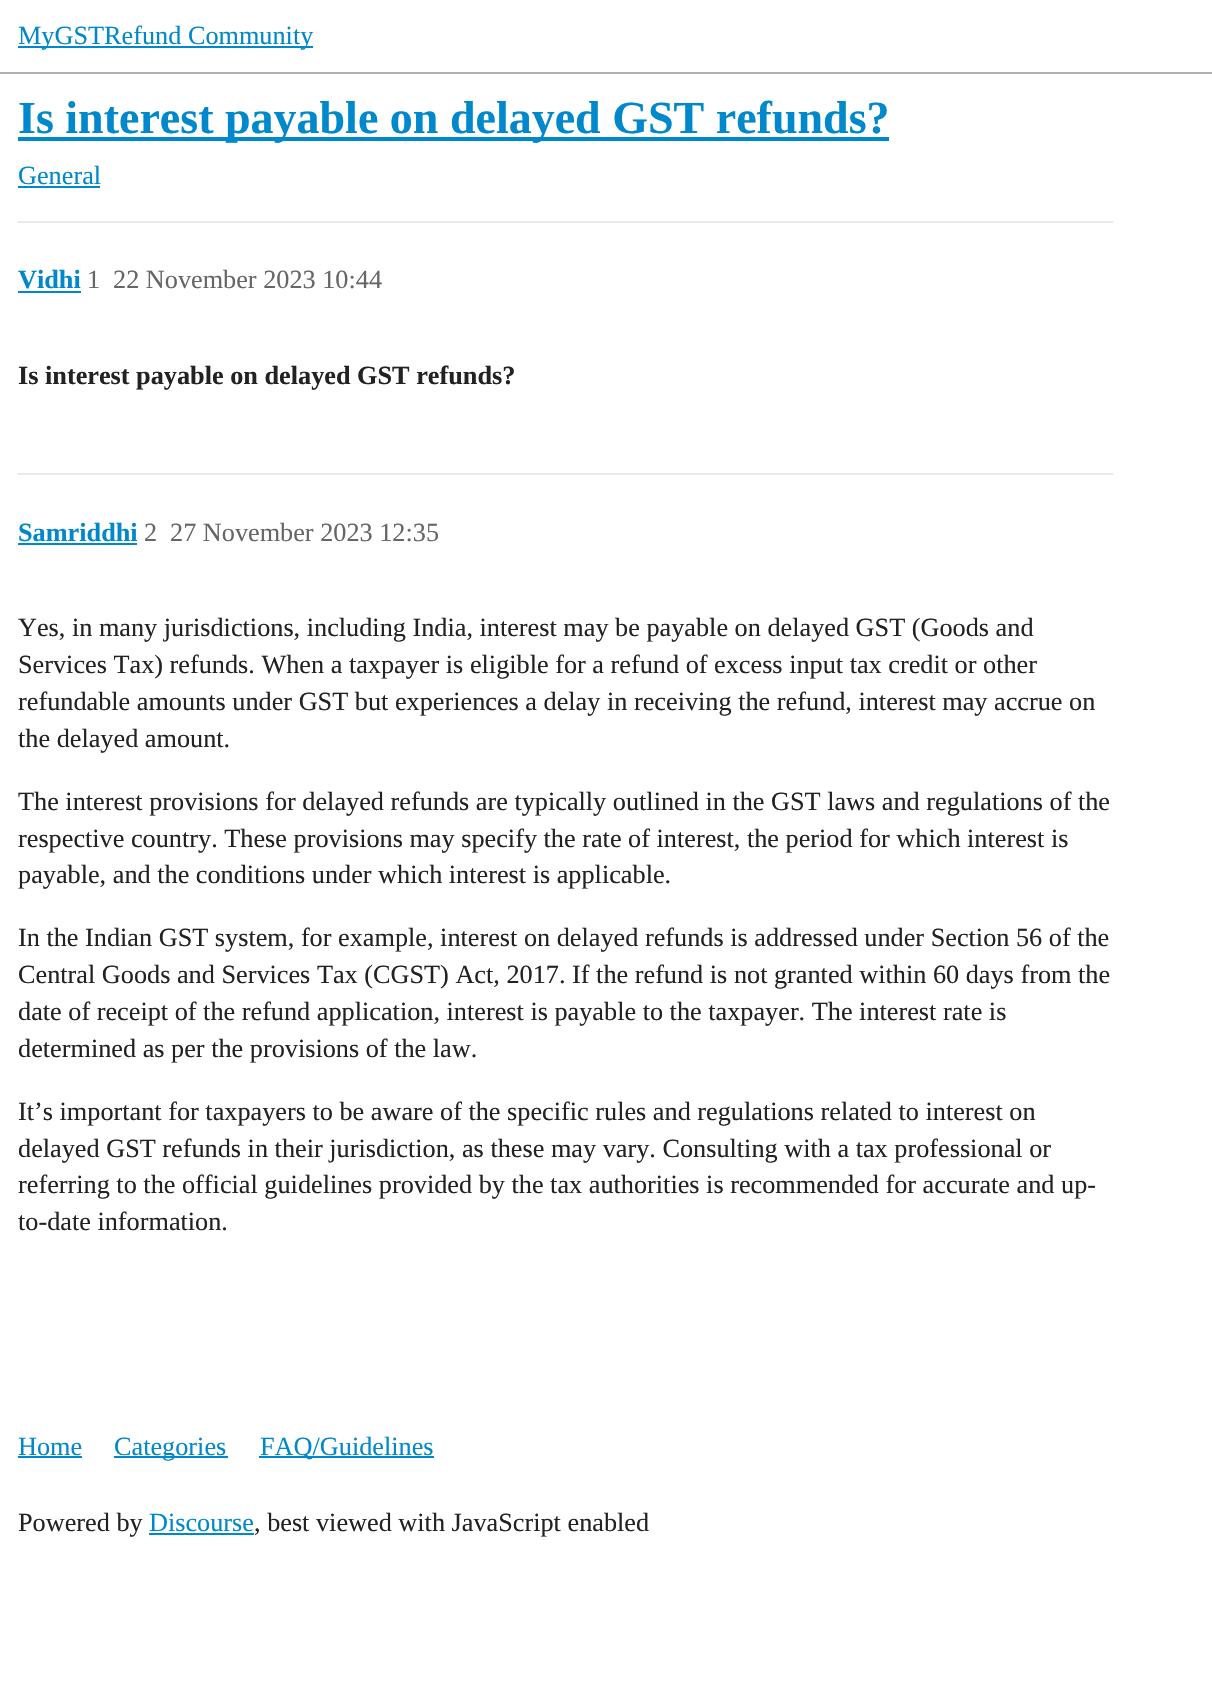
#include "include/core/SkBlurTypes.h"
#include "include/core/SkCanvas.h"
#include "include/core/SkData.h"
#include "include/core/SkFont.h"
#include "include/core/SkFontMgr.h"
#include "include/core/SkImage.h"
#include "include/core/SkMaskFilter.h"
#include "include/core/SkPaint.h"
#include "include/core/SkPathBuilder.h"
#include "include/core/SkTextBlob.h"
#include "include/effects/SkDashPathEffect.h"
#include "include/effects/SkGradientShader.h"
#include "include/utils/SkParsePath.h"

extern sk_sp<SkFontMgr> fontMgr;

static SkFont font(const char* family, int weight, float size, bool italic = false) {
    SkFontStyle style(weight, SkFontStyle::kNormal_Width,
        italic ? SkFontStyle::kItalic_Slant : SkFontStyle::kUpright_Slant);
    SkFont result(fontMgr->matchFamilyStyle(family, style), size);
    result.setSubpixel(true);
    return result;
}

static void drawLabel(SkCanvas* canvas, const char* s, float x, float y, const SkFont& font, SkColor color) {
    SkPaint ink(SkColor4f::FromColor(color));
    ink.setAntiAlias(true);
    canvas->drawString(s, x, y, font, ink);
}

static void fillRect(SkCanvas* canvas, float x, float y, float w, float h, SkColor color) {
    SkPaint ink(SkColor4f::FromColor(color));
    ink.setAntiAlias(true);
    canvas->drawRect(SkRect::MakeXYWH(x, y, w, h), ink);
}

void draw(SkCanvas* canvas) {
    SkPaint paint;
    paint.setAntiAlias(true);
    canvas->clear(0xFFFFFFFF);
    fillRect(canvas, 0, 72, 1212, 2, 0xFFAFAFAF);
    fillRect(canvas, 18, 46, 295, 2, 0xFF0088CC);
    SkFont font1 = font("Liberation Serif", 400, 26.25f);
    drawLabel(canvas, "MyGSTRefund Community", 18, 44, font1, 0xFF0088CC);
    fillRect(canvas, 18, 137, 871, 4, 0xFF0088CC);
    SkFont font2 = font("Liberation Serif", 700, 46);
    drawLabel(canvas, "Is interest payable on delayed GST refunds?", 18, 133, font2, 0xFF0088CC);
    drawLabel(canvas, "General", 18, 184, font1, 0xFF0088CC);
    fillRect(canvas, 18, 186, 82, 2, 0xFF0088CC);
    fillRect(canvas, 18, 221, 1095, 2, 0xFFE9E9E9);
    SkFont font3 = font("Liberation Serif", 700, 26.25f);
    drawLabel(canvas, "Vidhi", 18, 288, font3, 0xFF0088CC);
    fillRect(canvas, 18, 291, 63, 2, 0xFF0088CC);
    drawLabel(canvas, "1", 87, 288, font1, 0xFF666666);
    drawLabel(canvas, "22 November 2023 10:44", 113, 288, font1, 0xFF666666);
    drawLabel(canvas, "Is interest payable on delayed GST refunds?", 18, 384, font3, 0xFF222222);
    fillRect(canvas, 18, 473, 1095, 2, 0xFFE9E9E9);
    drawLabel(canvas, "Samriddhi", 18, 541, font3, 0xFF0088CC);
    fillRect(canvas, 18, 543, 119, 2, 0xFF0088CC);
    drawLabel(canvas, "2", 144, 541, font1, 0xFF666666);
    drawLabel(canvas, "27 November 2023 12:35", 170, 541, font1, 0xFF666666);
    drawLabel(canvas, "Yes, in many jurisdictions, including India, interest may be payable on delayed GST (Goods and", 18, 636, font1, 0xFF222222);
    drawLabel(canvas, "Services Tax) refunds. When a taxpayer is eligible for a refund of excess input tax credit or other", 18, 673, font1, 0xFF222222);
    drawLabel(canvas, "refundable amounts under GST but experiences a delay in receiving the refund, interest may accrue on", 18, 710, font1, 0xFF222222);
    drawLabel(canvas, "the delayed amount.", 18, 747, font1, 0xFF222222);
    drawLabel(canvas, "The interest provisions for delayed refunds are typically outlined in the GST laws and regulations of the", 18, 810, font1, 0xFF222222);
    drawLabel(canvas, "respective country. These provisions may specify the rate of interest, the period for which interest is", 18, 847, font1, 0xFF222222);
    drawLabel(canvas, "payable, and the conditions under which interest is applicable.", 18, 883, font1, 0xFF222222);
    drawLabel(canvas, "In the Indian GST system, for example, interest on delayed refunds is addressed under Section 56 of the", 18, 946, font1, 0xFF222222);
    drawLabel(canvas, "Central Goods and Services Tax (CGST) Act, 2017. If the refund is not granted within 60 days from the", 18, 983, font1, 0xFF222222);
    drawLabel(canvas, "date of receipt of the refund application, interest is payable to the taxpayer. The interest rate is", 18, 1020, font1, 0xFF222222);
    drawLabel(canvas, "determined as per the provisions of the law.", 18, 1057, font1, 0xFF222222);
    drawLabel(canvas, "It’s important for taxpayers to be aware of the specific rules and regulations related to interest on", 18, 1120, font1, 0xFF222222);
    drawLabel(canvas, "delayed GST refunds in their jurisdiction, as these may vary. Consulting with a tax professional or", 18, 1157, font1, 0xFF222222);
    drawLabel(canvas, "referring to the official guidelines provided by the tax authorities is recommended for accurate and up-", 18, 1193, font1, 0xFF222222);
    drawLabel(canvas, "to-date information.", 18, 1230, font1, 0xFF222222);
    drawLabel(canvas, "Home", 18, 1455, font1, 0xFF0088CC);
    fillRect(canvas, 18, 1456, 64, 2, 0xFF0088CC);
    fillRect(canvas, 114, 1456, 114, 2, 0xFF0088CC);
    drawLabel(canvas, "Categories", 114, 1455, font1, 0xFF0088CC);
    fillRect(canvas, 259, 1456, 175, 2, 0xFF0088CC);
    drawLabel(canvas, "FAQ/Guidelines", 260, 1455, font1, 0xFF0088CC);
    drawLabel(canvas, "Powered by", 18, 1531, font1, 0xFF222222);
    drawLabel(canvas, "Discourse", 149, 1531, font1, 0xFF0088CC);
    fillRect(canvas, 149, 1533, 105, 2, 0xFF0088CC);
    drawLabel(canvas, ", best viewed with JavaScript enabled", 254, 1531, font1, 0xFF222222);
}
